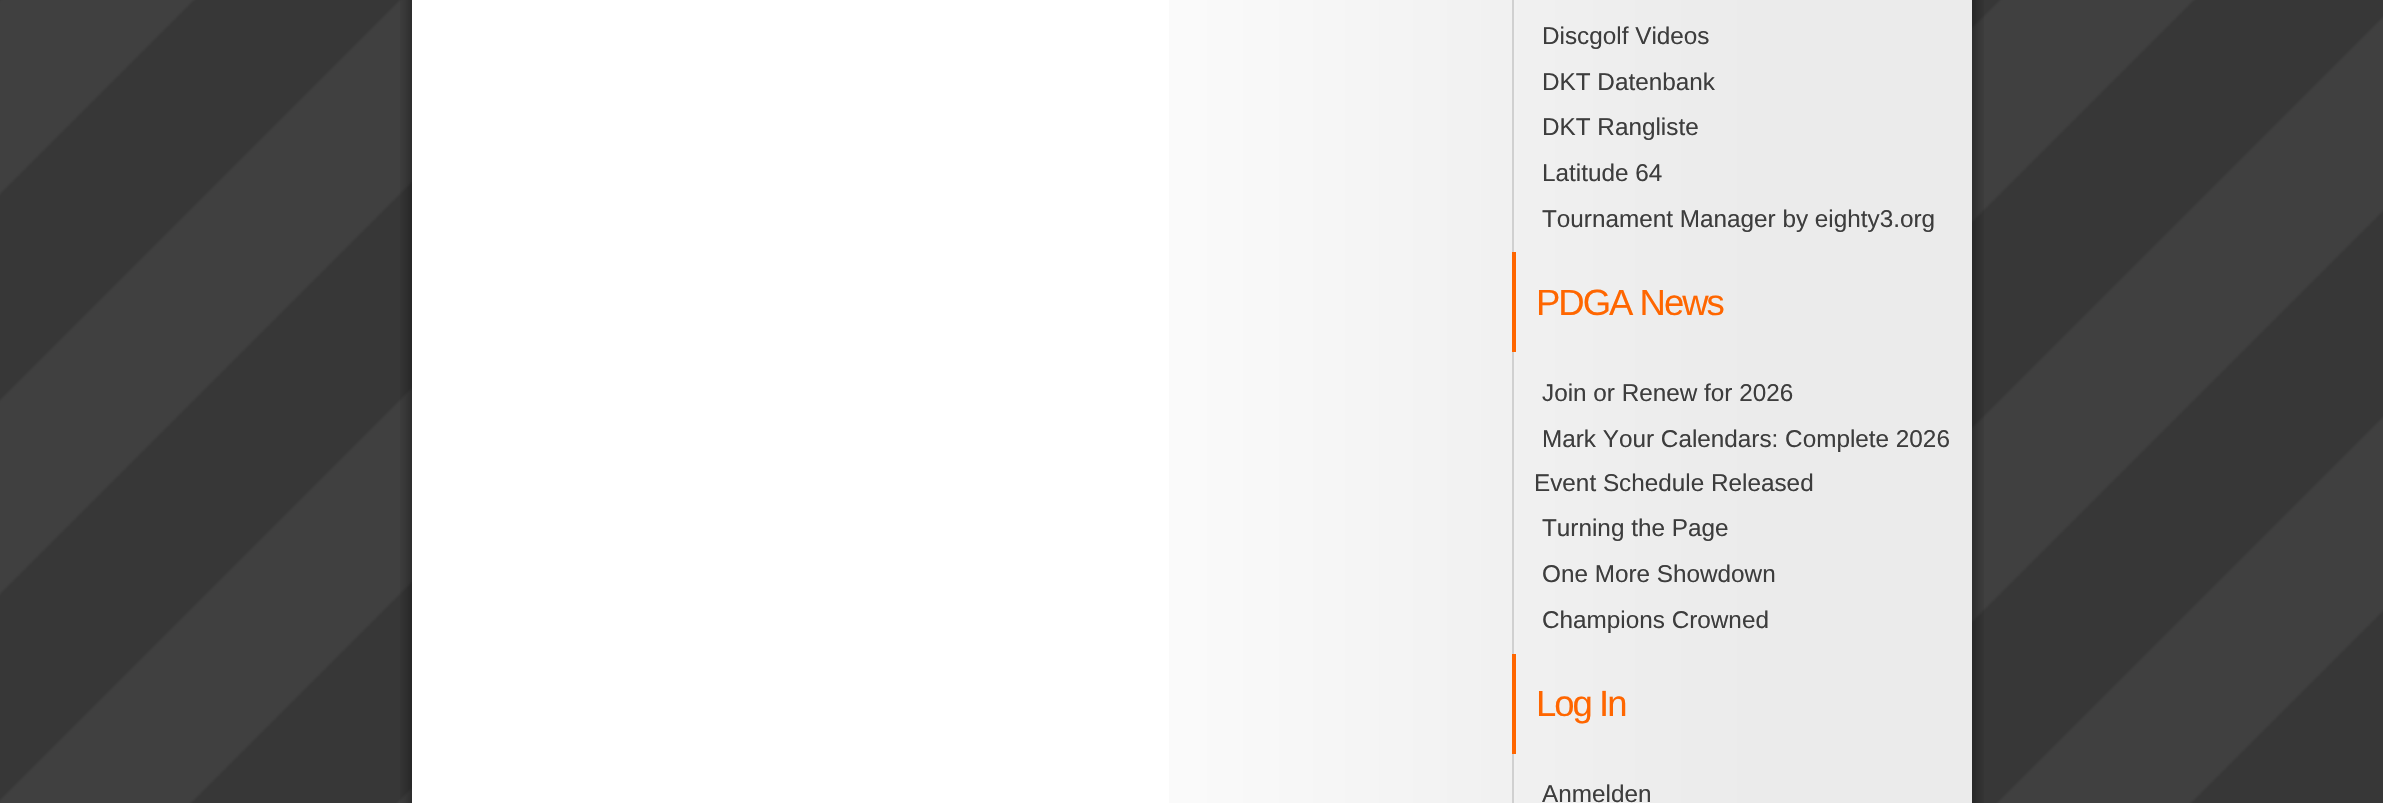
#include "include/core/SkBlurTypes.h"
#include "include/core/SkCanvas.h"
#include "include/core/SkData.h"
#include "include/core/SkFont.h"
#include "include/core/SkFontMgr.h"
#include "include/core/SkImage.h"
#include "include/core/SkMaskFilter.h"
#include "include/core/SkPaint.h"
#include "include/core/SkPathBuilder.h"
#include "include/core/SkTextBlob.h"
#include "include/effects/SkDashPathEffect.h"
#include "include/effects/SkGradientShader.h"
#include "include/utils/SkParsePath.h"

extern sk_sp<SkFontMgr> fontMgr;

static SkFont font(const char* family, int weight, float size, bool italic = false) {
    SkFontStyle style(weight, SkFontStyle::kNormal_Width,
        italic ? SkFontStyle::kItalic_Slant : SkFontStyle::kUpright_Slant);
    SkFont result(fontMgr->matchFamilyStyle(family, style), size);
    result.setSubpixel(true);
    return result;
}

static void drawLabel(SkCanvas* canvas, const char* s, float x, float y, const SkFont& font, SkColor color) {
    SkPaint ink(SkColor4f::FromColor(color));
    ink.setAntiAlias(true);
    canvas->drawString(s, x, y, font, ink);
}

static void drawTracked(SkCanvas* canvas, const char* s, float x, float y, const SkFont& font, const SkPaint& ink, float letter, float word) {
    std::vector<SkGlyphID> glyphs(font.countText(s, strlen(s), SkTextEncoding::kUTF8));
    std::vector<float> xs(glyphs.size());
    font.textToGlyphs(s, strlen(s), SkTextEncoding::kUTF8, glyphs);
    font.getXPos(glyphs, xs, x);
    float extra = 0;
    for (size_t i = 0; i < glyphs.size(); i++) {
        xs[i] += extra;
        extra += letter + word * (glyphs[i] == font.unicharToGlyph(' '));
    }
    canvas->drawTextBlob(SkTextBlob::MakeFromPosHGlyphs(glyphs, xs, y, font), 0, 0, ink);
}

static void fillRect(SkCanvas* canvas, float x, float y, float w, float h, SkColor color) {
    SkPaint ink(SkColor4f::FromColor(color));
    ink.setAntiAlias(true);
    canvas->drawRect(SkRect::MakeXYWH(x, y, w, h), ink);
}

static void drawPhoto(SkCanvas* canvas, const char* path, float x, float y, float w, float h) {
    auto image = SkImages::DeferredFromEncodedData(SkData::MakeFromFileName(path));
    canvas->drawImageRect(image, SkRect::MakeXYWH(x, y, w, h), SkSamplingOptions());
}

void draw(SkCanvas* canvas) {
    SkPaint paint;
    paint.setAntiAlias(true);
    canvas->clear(0xFFFFFFFF);
    drawPhoto(canvas, "assets/img1.png", 0, 0, 2383, 803);
    drawPhoto(canvas, "assets/img2.png", 1972, 0, 12, 803);
    drawPhoto(canvas, "assets/img3.png", 400, 0, 12, 803);
    fillRect(canvas, 412, 0, 757, 803, 0xFFFFFFFF);
    drawPhoto(canvas, "assets/img4.png", 1169, 0, 803, 803);
    fillRect(canvas, 1512, 0, 2, 803, 0xFFD0D0D0);
    SkFont font1 = font("Liberation Sans", 400, 24.3f);
    drawLabel(canvas, "Discgolf Videos", 1542, 44, font1, 0xFF3D3D3D);
    drawLabel(canvas, "DKT Datenbank", 1542, 90, font1, 0xFF3D3D3D);
    drawLabel(canvas, "DKT Rangliste", 1542, 135, font1, 0xFF3D3D3D);
    drawLabel(canvas, "Latitude 64", 1542, 181, font1, 0xFF3D3D3D);
    drawLabel(canvas, "Tournament Manager by eighty3.org", 1542, 227, font1, 0xFF3D3D3D);
    fillRect(canvas, 1512, 252, 4, 100, 0xFFFF6600);
    SkFont font2 = font("Liberation Sans", 400, 36.5f);
    paint.setColor(0xFFFF6600);
    drawTracked(canvas, "PDGA News", 1536, 315, font2, paint, -2, 0);
    drawLabel(canvas, "Join or Renew for 2026", 1542, 401, font1, 0xFF3D3D3D);
    drawLabel(canvas, "Mark Your Calendars: Complete 2026", 1542, 447, font1, 0xFF3D3D3D);
    drawLabel(canvas, "Event Schedule Released", 1534, 491, font1, 0xFF3D3D3D);
    drawLabel(canvas, "Turning the Page", 1542, 536, font1, 0xFF3D3D3D);
    drawLabel(canvas, "One More Showdown", 1542, 582, font1, 0xFF3D3D3D);
    drawLabel(canvas, "Champions Crowned", 1542, 628, font1, 0xFF3D3D3D);
    fillRect(canvas, 1512, 654, 4, 100, 0xFFFF6600);
    drawTracked(canvas, "Log In", 1536, 716, font2, paint, -2, 0);
    drawLabel(canvas, "Anmelden", 1542, 802, font1, 0xFF3D3D3D);
}
